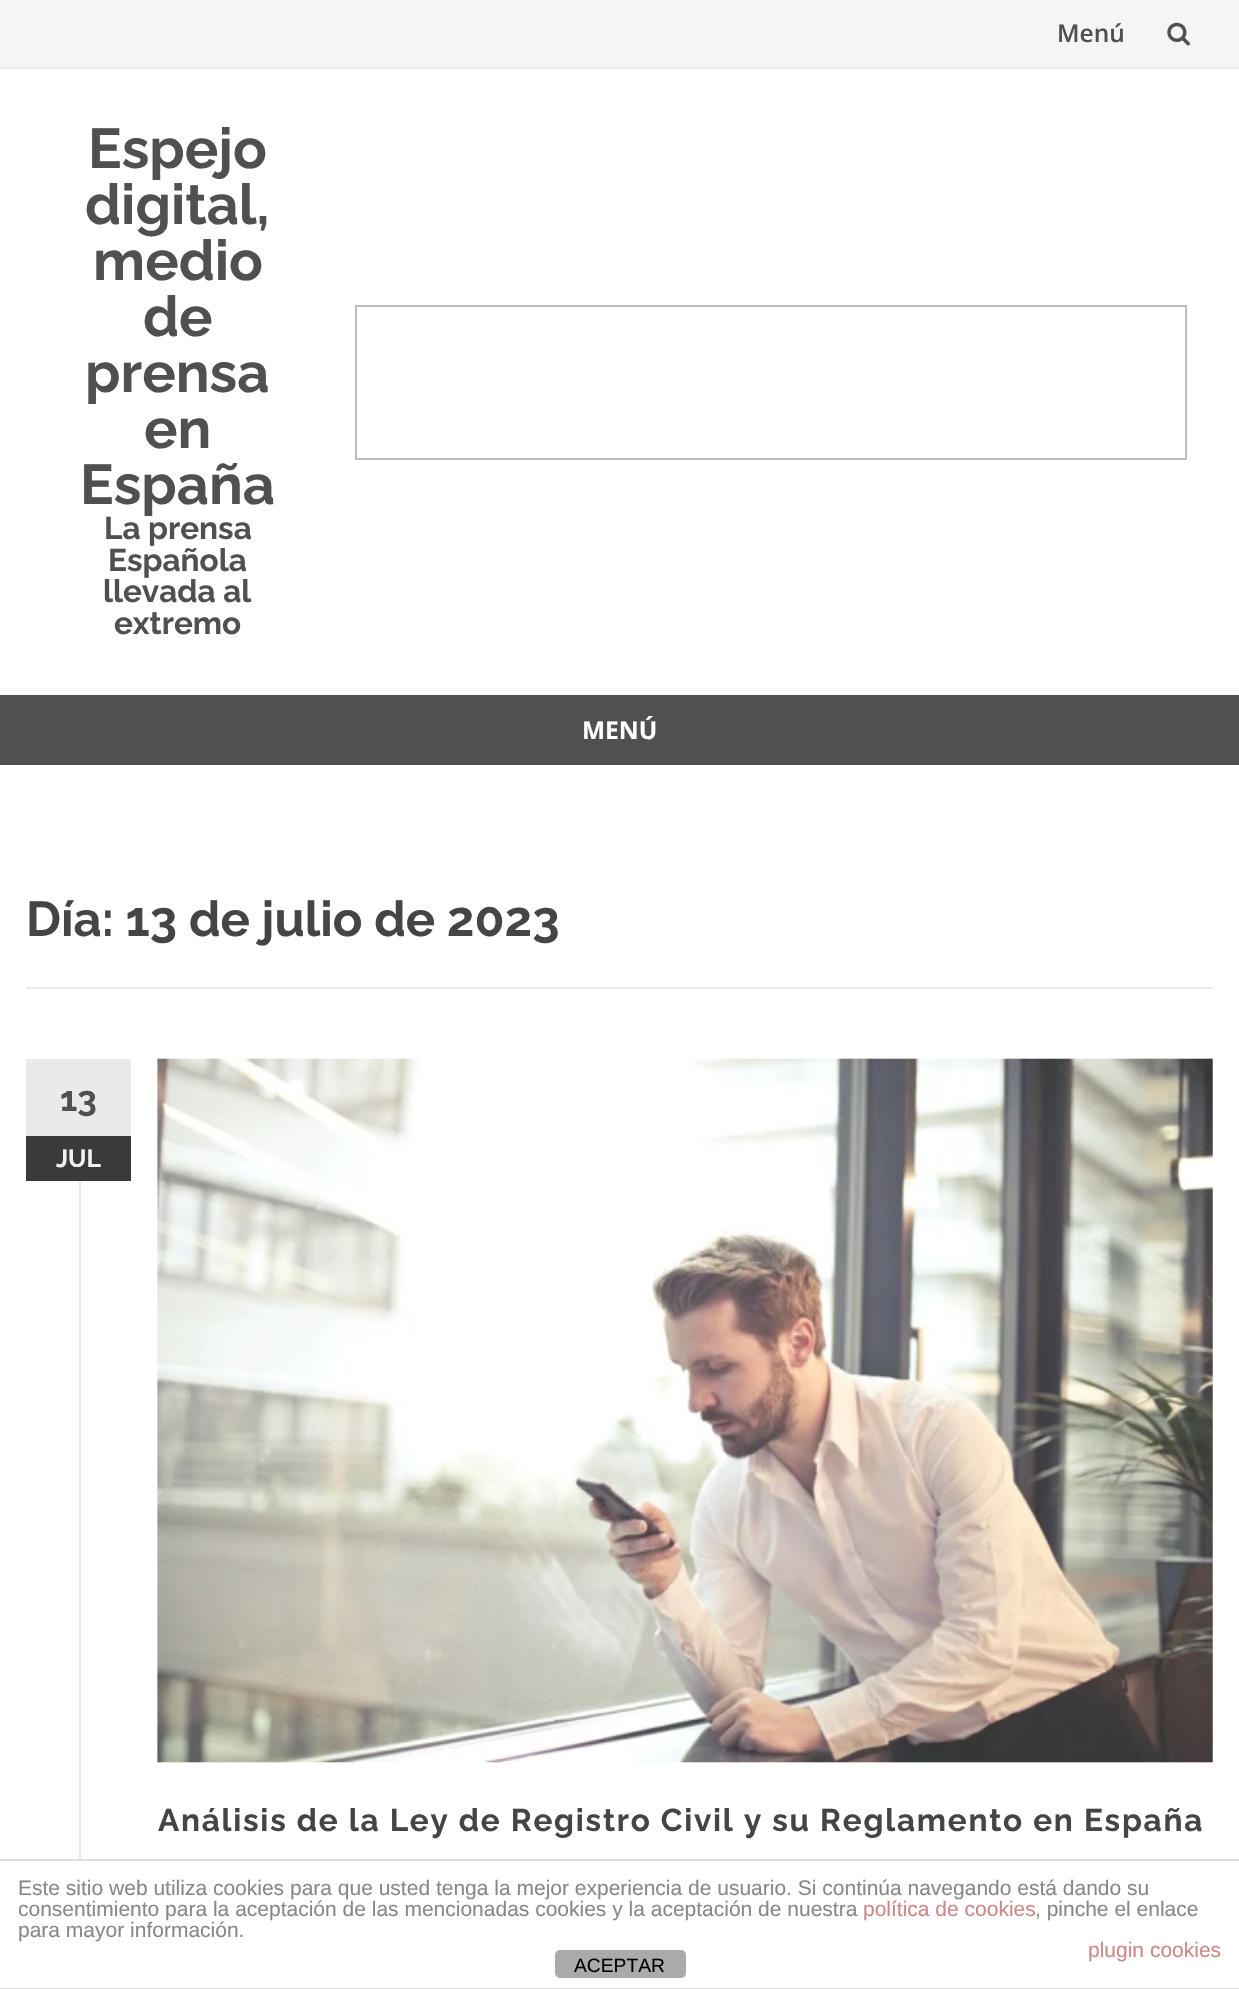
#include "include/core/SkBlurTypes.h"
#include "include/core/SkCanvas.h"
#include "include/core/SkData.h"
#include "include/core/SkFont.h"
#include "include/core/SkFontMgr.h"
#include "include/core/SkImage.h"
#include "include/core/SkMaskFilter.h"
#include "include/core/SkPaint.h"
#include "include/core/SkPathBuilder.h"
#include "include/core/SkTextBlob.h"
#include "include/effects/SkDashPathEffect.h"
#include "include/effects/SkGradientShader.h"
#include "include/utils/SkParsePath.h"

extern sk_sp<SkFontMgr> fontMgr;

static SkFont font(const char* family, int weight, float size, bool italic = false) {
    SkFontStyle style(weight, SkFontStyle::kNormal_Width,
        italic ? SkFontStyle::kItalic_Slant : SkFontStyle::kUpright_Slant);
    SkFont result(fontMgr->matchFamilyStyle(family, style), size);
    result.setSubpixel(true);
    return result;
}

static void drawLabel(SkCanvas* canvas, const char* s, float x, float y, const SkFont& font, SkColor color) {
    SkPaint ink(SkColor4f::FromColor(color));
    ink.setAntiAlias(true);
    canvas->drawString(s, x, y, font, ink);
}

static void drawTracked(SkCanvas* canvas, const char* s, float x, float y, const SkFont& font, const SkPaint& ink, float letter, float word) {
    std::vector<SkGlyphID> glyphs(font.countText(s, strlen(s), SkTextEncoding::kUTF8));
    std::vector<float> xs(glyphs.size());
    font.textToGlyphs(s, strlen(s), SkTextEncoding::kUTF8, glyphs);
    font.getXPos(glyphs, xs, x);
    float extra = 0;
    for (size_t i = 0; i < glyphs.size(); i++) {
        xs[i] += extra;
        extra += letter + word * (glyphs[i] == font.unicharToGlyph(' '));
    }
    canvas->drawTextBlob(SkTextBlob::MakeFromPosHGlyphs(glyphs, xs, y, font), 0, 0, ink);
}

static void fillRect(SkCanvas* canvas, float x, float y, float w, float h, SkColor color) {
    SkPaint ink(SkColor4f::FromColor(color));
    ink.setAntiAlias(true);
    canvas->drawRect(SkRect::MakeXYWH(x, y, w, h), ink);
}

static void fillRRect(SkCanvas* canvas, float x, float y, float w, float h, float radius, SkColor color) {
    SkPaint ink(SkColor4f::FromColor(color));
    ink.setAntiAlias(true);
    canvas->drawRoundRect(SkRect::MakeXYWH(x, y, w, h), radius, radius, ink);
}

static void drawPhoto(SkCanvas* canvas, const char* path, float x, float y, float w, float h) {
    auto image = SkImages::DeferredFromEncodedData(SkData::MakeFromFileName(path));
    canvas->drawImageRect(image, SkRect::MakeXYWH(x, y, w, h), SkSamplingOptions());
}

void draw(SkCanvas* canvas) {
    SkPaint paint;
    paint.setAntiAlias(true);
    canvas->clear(0xFFFFFFFF);
    fillRect(canvas, 0, 0, 1239, 67, 0xFFF5F5F5);
    fillRect(canvas, 0, 67, 1239, 2, 0xFFEAEAEA);
    SkFont font1 = font("Open Sans", 600, 24.5f);
    drawLabel(canvas, "Menú", 1057, 42, font1, 0xFF505050);
    drawPhoto(canvas, "assets/img1.png", 1167, 22, 23, 24);
    SkFont font2 = font("Raleway", 100, 56);
    drawLabel(canvas, "Espejo", 88, 168, font2, 0xFF505050);
    drawLabel(canvas, "digital,", 85, 224, font2, 0xFF505050);
    drawLabel(canvas, "medio", 93, 280, font2, 0xFF505050);
    drawLabel(canvas, "de", 143, 336, font2, 0xFF505050);
    drawLabel(canvas, "prensa", 85, 392, font2, 0xFF505050);
    drawLabel(canvas, "en", 144, 448, font2, 0xFF505050);
    drawLabel(canvas, "España", 80, 504, font2, 0xFF505050);
    SkFont font3 = font("Raleway", 100, 31.5f);
    drawLabel(canvas, "La prensa", 104, 539, font3, 0xFF505050);
    drawLabel(canvas, "Española", 108, 571, font3, 0xFF505050);
    drawLabel(canvas, "llevada al", 103, 602, font3, 0xFF505050);
    drawLabel(canvas, "extremo", 114, 634, font3, 0xFF505050);
    paint.setStroke(true);
    paint.setStrokeWidth(2);
    paint.setColor(0xFFBDBDBD);
    canvas->drawRect(SkRect::MakeXYWH(356, 306, 830, 153), paint);
    fillRect(canvas, 0, 695, 1239, 70, 0xFF505050);
    SkFont font4 = font("Open Sans", 700, 24.5f);
    drawLabel(canvas, "MENÚ", 582, 739, font4, 0xFFFFFFFF);
    fillRect(canvas, 26, 987, 1187, 2, 0xFFEAEAEA);
    SkFont font5 = font("Raleway", 100, 49);
    drawLabel(canvas, "Día: 13 de julio de 2023", 26, 936, font5, 0xFF454545);
    fillRect(canvas, 26, 1059, 105, 77, 0xFFEAEAEA);
    SkFont font6 = font("Raleway", 100, 35);
    drawLabel(canvas, "13", 60, 1111, font6, 0xFF505050);
    fillRect(canvas, 26, 1136, 105, 45, 0xFF3A3A3A);
    SkFont font7 = font("Raleway", 100, 24.5f);
    drawLabel(canvas, "JUL", 56, 1167, font7, 0xFFF1F1F1);
    drawPhoto(canvas, "assets/img2.png", 157, 1058, 1056, 705);
    fillRect(canvas, 79, 1181, 2, 678, 0xFFEAEAEA);
    paint.setStroke(false);
    paint.setColor(0xFF454545);
    drawTracked(canvas, "Análisis de la Ley de Registro Civil y su Reglamento en España", 158, 1831, font3, paint, 1.75f, 0);
    fillRect(canvas, 0, 1859, 1239, 2, 0xFFDDDDDD);
    fillRect(canvas, 0, 1988, 1239, 1, 0xFFDDDDDD);
    SkFont font8 = font("Liberation Sans", 400, 21);
    drawLabel(canvas, "Este sitio web utiliza cookies para que usted tenga la mejor experiencia de usuario. Si continúa navegando está dando su", 18, 1895, font8, 0xFF888888);
    drawLabel(canvas, "consentimiento para la aceptación de las mencionadas cookies y la aceptación de nuestra", 18, 1916, font8, 0xFF888888);
    drawLabel(canvas, "política de cookies", 863, 1916, font8, 0xFFCC8888);
    drawLabel(canvas, ", pinche el enlace", 1035, 1916, font8, 0xFF888888);
    drawLabel(canvas, "para mayor información.", 18, 1937, font8, 0xFF888888);
    drawLabel(canvas, "plugin cookies", 1088, 1957, font8, 0xFFCC8888);
    fillRRect(canvas, 555, 1950, 131, 28, 5, 0xFFAAAAAA);
    SkFont font9 = font("Liberation Sans", 400, 19.25f);
    drawLabel(canvas, "ACEPTAR", 574, 1972, font9, 0xFF000000);
}
